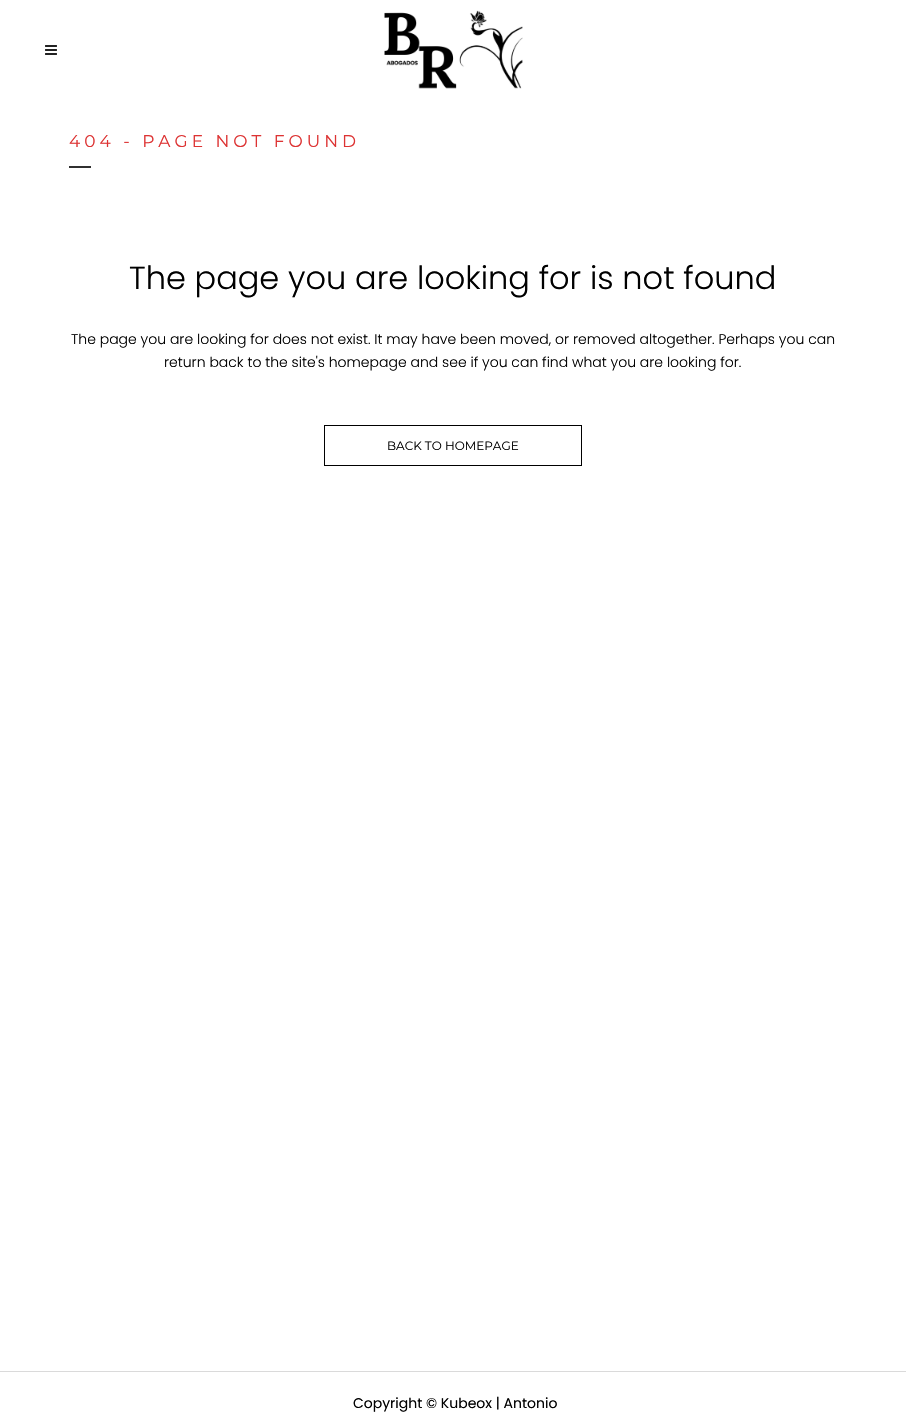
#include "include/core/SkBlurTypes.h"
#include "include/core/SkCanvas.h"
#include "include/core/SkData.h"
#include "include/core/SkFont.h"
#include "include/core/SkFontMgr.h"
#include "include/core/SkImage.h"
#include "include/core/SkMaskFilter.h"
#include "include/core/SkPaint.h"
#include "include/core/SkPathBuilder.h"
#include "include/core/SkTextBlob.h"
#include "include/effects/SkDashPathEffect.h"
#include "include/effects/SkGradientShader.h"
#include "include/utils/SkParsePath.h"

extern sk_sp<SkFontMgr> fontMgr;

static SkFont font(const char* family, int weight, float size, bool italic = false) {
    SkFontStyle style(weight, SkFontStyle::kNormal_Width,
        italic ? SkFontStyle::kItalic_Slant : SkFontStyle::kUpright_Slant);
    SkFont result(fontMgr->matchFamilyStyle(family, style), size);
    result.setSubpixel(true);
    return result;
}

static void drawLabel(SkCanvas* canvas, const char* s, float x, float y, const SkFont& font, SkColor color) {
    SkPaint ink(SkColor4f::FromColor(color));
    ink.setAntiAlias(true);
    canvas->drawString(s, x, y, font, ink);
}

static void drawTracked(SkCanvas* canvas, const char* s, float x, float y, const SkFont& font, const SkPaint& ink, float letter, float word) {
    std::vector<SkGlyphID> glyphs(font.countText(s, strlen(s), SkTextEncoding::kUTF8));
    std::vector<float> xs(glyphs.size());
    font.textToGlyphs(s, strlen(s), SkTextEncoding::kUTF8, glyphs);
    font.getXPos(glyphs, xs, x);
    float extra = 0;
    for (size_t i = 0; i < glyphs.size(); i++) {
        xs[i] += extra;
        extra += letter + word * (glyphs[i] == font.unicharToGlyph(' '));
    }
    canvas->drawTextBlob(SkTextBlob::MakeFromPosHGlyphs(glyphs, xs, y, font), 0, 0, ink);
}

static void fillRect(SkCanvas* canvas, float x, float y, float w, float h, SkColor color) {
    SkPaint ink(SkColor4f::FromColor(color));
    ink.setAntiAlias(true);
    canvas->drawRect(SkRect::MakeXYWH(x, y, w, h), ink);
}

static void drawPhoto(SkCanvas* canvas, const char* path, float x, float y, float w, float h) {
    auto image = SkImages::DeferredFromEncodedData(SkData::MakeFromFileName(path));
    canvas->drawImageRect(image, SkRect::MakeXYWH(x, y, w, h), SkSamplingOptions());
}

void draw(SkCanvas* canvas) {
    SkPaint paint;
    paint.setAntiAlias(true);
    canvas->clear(0xFFFFFFFF);
    drawPhoto(canvas, "assets/img1.png", 45, 45, 12, 10);
    drawPhoto(canvas, "assets/img2.png", 384, 10, 139, 79);
    SkFont font1 = font("Montserrat", 400, 17);
    paint.setColor(0xFFDD3333);
    drawTracked(canvas, "404 - PAGE NOT FOUND", 69, 147, font1, paint, 4, 0);
    fillRect(canvas, 69, 166, 22, 2, 0xFF303030);
    SkFont font2 = font("Poppins", 300, 32);
    drawLabel(canvas, "The page you are looking for is not found", 129, 289, font2, 0xFF000000);
    SkFont font3 = font("Poppins", 300, 14);
    drawLabel(canvas, "The page you are looking for does not exist. It may have been moved, or removed altogether. Perhaps you can", 71, 344, font3, 0xFF000000);
    drawLabel(canvas, "return back to the site's homepage and see if you can find what you are looking for.", 164, 367, font3, 0xFF000000);
    paint.setStroke(true);
    paint.setStrokeWidth(1);
    paint.setColor(0xFF000000);
    canvas->drawRect(SkRect::MakeXYWH(324.5f, 425.5f, 257, 40), paint);
    SkFont font4 = font("Montserrat", 400, 12);
    drawLabel(canvas, "BACK TO HOMEPAGE", 387, 450, font4, 0xFF000000);
    fillRect(canvas, 0, 1371, 906, 1, 0xFFDADADA);
    SkFont font5 = font("Poppins", 400, 14);
    drawLabel(canvas, "Copyright © Kubeox | Antonio", 353, 1408, font5, 0xFF000000);
}
